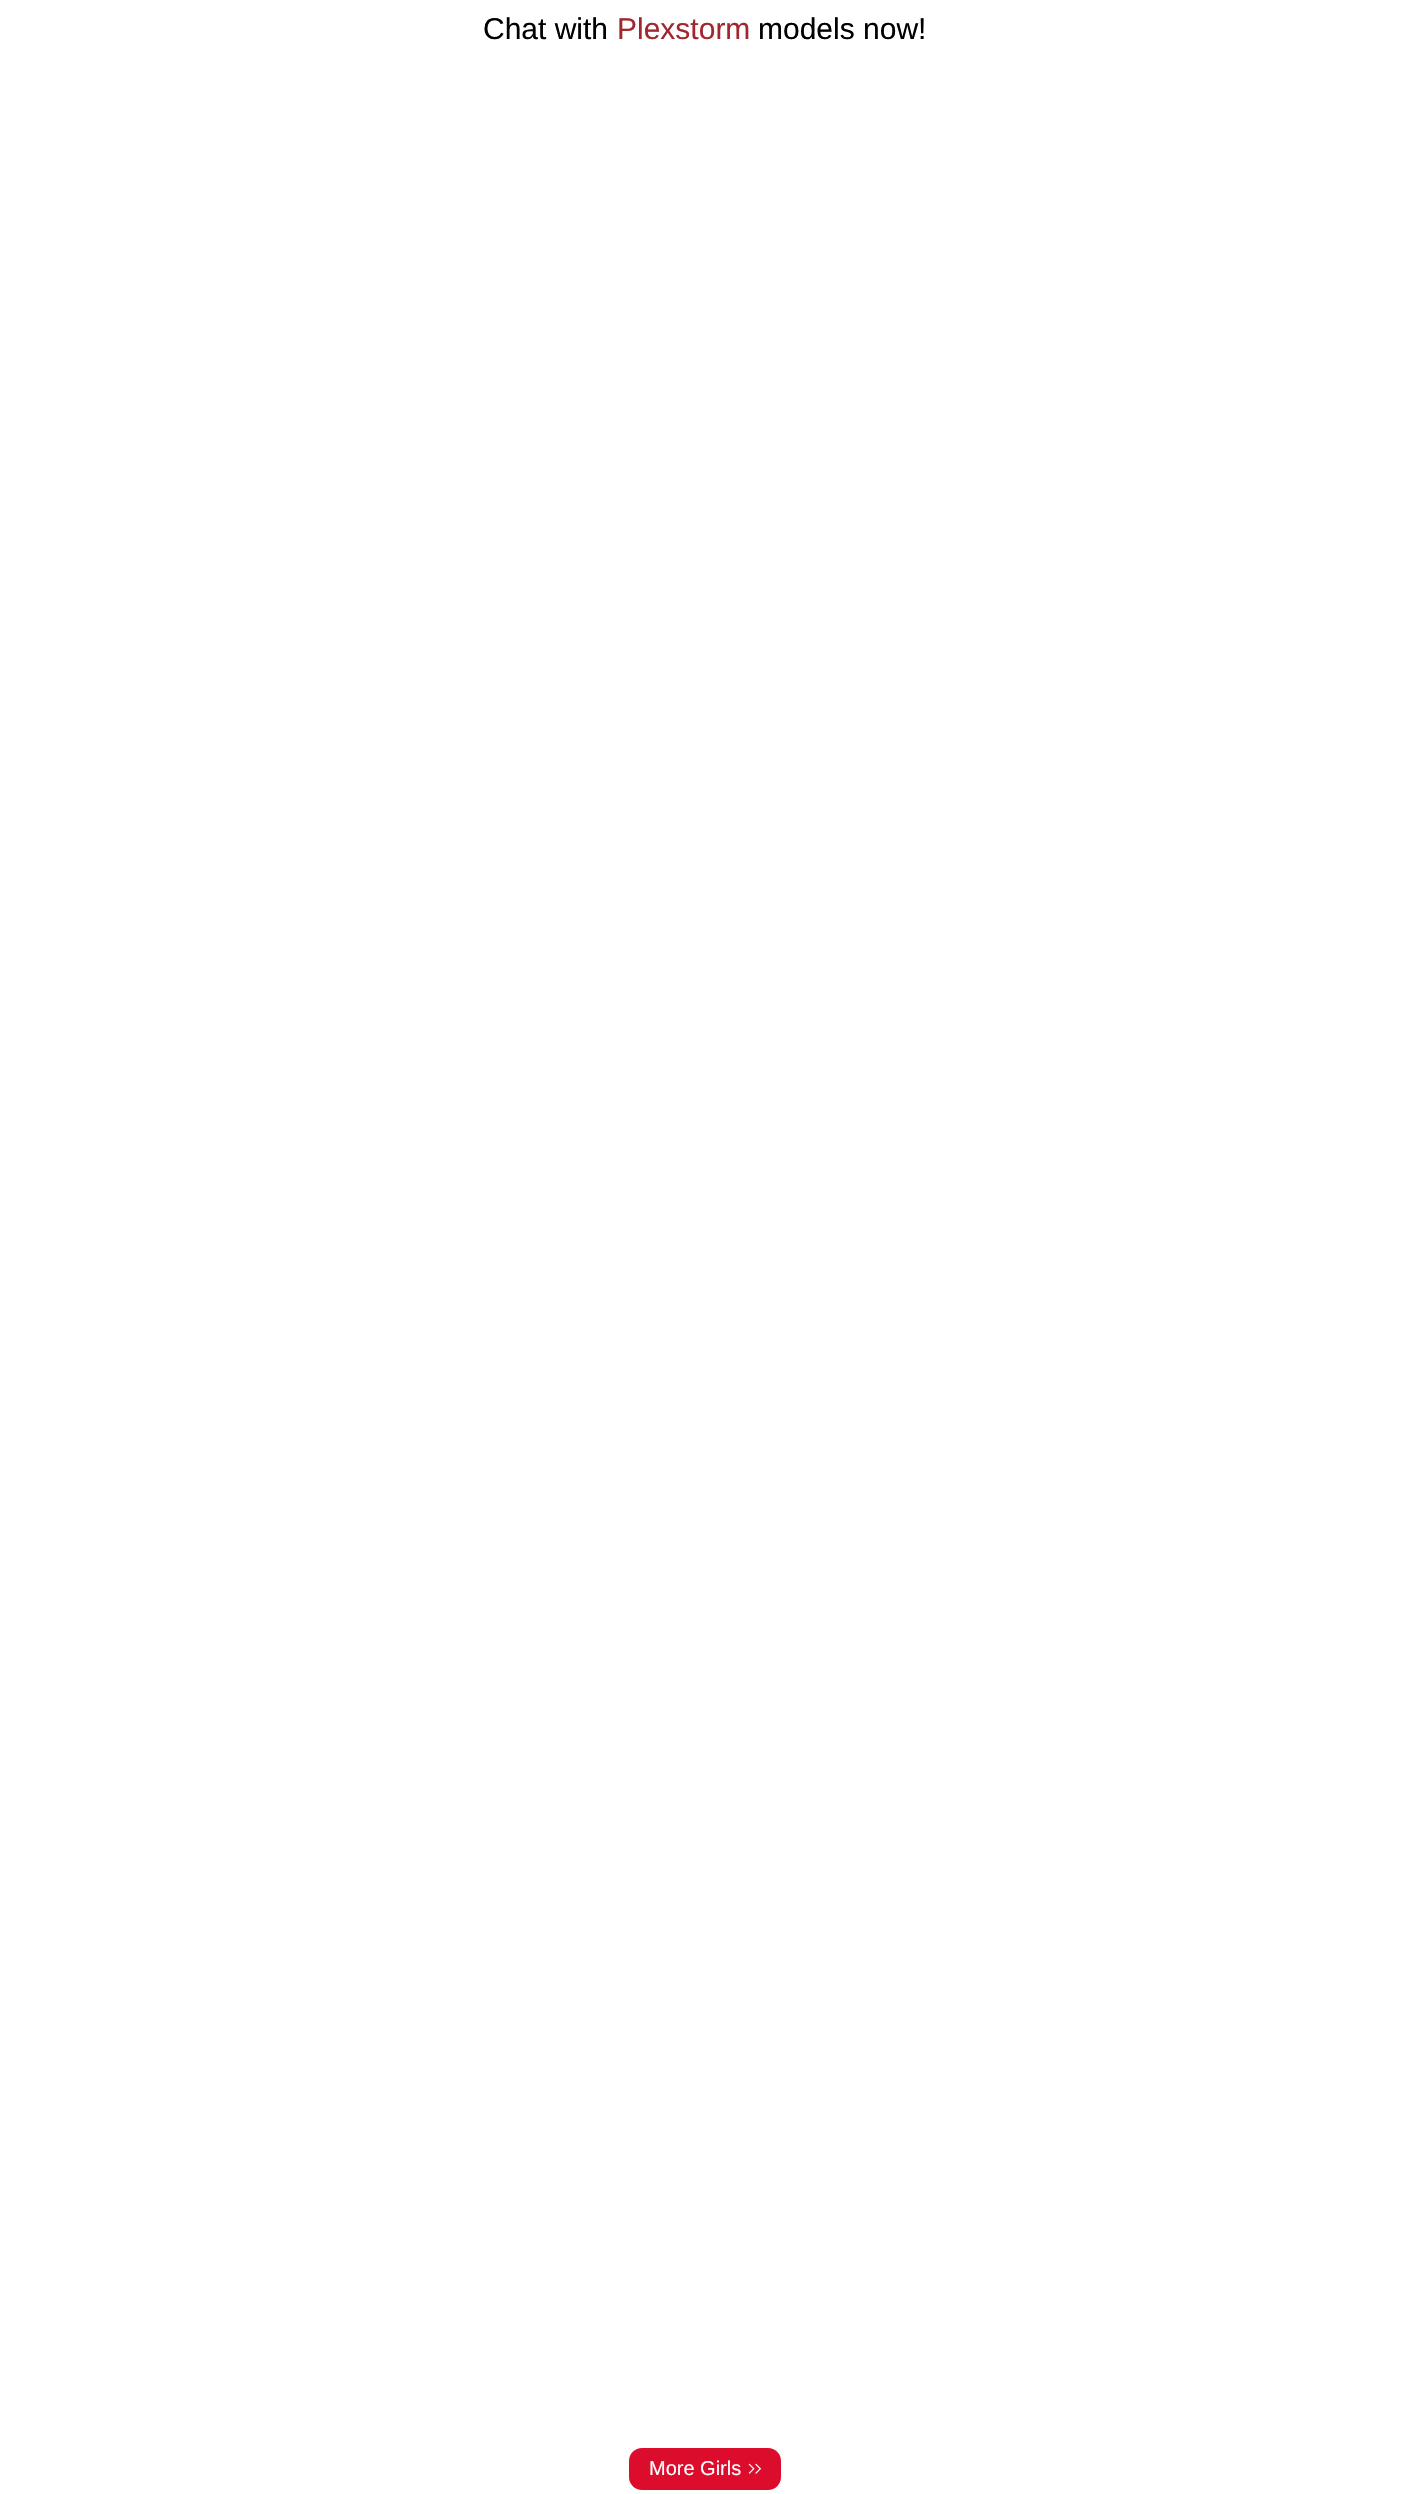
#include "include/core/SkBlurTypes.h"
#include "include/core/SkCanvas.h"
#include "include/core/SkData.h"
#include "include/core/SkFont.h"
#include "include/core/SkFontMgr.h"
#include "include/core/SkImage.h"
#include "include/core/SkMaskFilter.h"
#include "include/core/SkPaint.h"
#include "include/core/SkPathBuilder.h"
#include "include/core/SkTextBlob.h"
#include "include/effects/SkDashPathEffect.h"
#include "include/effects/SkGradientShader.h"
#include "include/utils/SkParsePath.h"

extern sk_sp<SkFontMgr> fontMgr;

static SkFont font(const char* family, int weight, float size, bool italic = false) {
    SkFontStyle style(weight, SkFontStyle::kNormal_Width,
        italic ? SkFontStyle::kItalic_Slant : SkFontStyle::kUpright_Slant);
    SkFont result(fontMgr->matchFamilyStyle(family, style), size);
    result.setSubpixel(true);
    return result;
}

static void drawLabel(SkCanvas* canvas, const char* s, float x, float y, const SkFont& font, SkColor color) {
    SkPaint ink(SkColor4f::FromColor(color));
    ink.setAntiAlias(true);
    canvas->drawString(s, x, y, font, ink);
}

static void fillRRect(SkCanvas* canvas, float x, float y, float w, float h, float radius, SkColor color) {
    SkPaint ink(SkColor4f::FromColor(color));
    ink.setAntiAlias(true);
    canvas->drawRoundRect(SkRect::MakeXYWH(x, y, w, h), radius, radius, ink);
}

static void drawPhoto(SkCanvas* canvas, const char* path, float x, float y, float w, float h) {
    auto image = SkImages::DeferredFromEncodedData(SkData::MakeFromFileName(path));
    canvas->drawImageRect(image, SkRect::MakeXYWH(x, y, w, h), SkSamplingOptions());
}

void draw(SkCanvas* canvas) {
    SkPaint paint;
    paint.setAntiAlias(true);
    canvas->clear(0xFFFFFFFF);
    SkFont font1 = font("Liberation Sans", 400, 30);
    drawLabel(canvas, "Chat with", 483, 39, font1, 0xFF000000);
    drawLabel(canvas, "Plexstorm", 617, 39, font1, 0xFFA2262E);
    drawLabel(canvas, "models now!", 758, 39, font1, 0xFF000000);
    fillRRect(canvas, 629, 2448, 152, 42, 13, 0xFFDC0C2C);
    SkFont font2 = font("Liberation Sans", 400, 20);
    drawLabel(canvas, "More Girls", 649, 2475, font2, 0xFFFFFFFF);
    drawPhoto(canvas, "assets/img1.png", 748, 2463, 13, 11);
}
